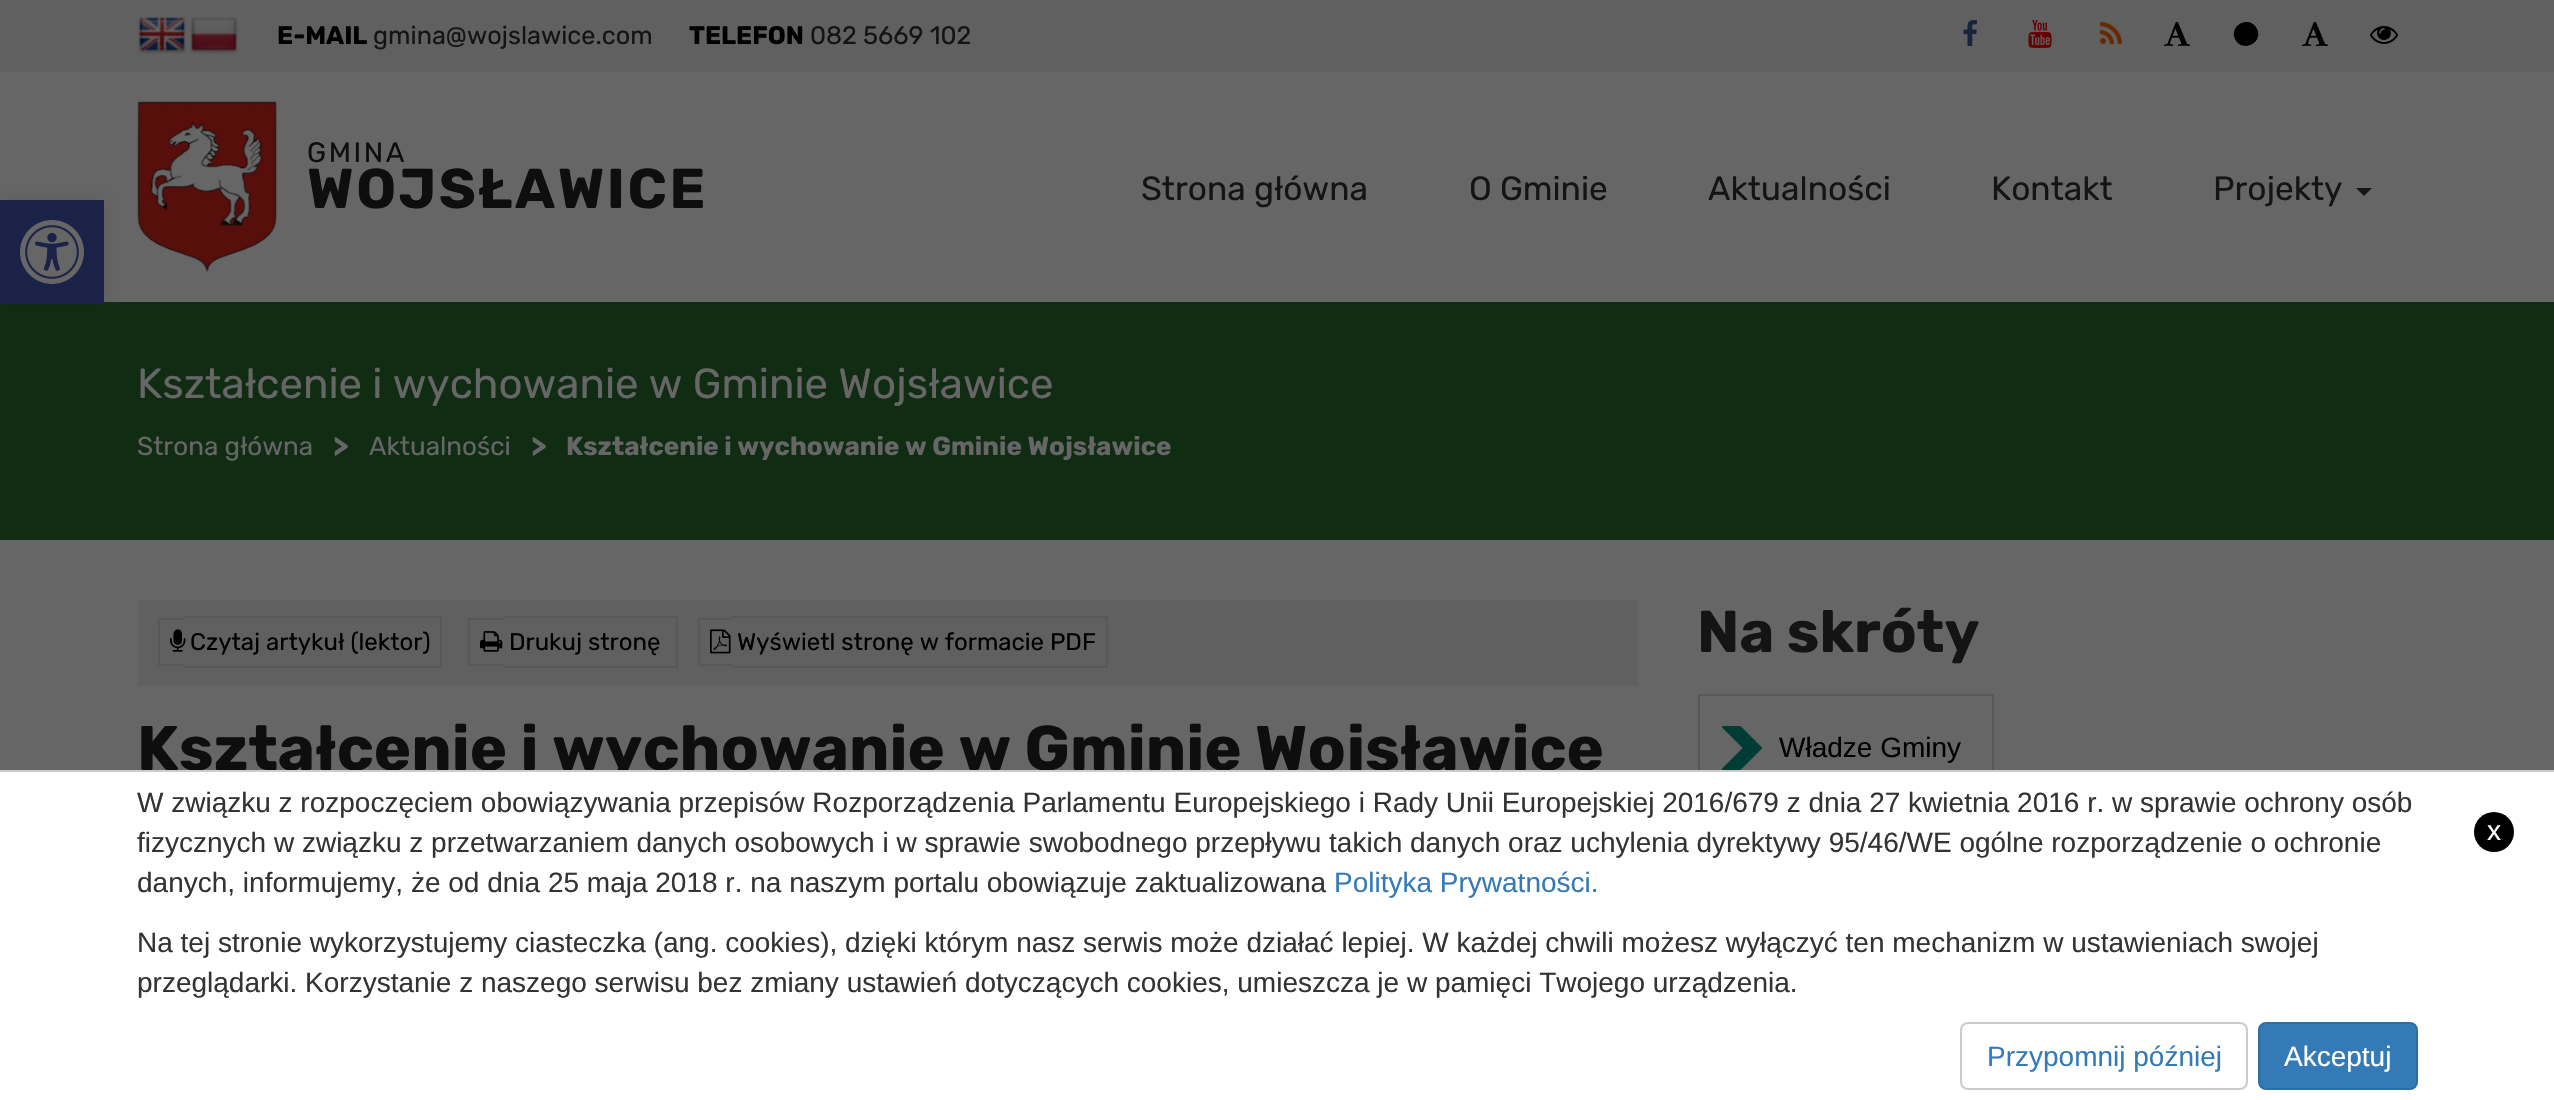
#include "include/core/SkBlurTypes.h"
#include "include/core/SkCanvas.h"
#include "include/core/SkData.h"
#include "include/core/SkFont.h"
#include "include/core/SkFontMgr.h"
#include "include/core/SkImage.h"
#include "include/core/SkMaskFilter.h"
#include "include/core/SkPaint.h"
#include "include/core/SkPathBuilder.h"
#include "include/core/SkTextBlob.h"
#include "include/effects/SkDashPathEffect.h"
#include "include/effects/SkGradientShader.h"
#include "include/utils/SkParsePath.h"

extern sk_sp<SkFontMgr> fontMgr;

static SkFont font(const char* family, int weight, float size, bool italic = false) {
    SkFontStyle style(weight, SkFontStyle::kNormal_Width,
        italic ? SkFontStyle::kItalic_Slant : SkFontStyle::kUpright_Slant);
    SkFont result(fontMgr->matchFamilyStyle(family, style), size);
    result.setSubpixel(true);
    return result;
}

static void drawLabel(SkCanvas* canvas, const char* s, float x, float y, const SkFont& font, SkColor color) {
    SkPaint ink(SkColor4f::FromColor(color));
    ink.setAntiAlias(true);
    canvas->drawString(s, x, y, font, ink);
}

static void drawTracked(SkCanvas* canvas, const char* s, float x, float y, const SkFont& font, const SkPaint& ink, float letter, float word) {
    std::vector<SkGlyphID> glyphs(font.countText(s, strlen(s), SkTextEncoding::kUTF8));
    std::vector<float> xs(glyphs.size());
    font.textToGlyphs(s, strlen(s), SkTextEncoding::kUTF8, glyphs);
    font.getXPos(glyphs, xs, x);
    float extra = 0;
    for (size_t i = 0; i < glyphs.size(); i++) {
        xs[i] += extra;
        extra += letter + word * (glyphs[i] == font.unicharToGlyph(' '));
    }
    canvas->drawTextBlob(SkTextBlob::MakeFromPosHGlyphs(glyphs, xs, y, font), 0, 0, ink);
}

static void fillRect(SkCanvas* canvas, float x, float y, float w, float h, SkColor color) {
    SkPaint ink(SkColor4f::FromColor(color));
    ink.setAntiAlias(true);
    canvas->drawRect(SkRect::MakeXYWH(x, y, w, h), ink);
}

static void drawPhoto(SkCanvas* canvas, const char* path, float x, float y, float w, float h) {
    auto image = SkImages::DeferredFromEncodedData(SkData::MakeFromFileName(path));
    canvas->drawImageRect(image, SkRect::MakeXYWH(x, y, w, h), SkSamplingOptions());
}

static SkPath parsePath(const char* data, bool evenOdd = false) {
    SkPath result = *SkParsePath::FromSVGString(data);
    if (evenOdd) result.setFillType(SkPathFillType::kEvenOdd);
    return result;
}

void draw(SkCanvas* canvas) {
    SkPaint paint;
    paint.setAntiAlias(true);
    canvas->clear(0xFF666666);
    fillRect(canvas, 0, 302, 2554, 238, 0xFF102D13);
    paint.setColor(0x1A000000);
    paint.setMaskFilter(SkMaskFilter::MakeBlur(kNormal_SkBlurStyle, 10));
    canvas->drawRect(SkRect::MakeXYWH(0, 200, 104, 104), paint);
    paint.setMaskFilter(nullptr);
    fillRect(canvas, 0, 200, 104, 104, 0xFF1A2247);
    drawPhoto(canvas, "assets/img1.png", 20, 220, 64, 64);
    fillRect(canvas, 0, 0, 2554, 72, 0xFF606060);
    drawPhoto(canvas, "assets/img2.png", 138, 17, 48, 37);
    drawPhoto(canvas, "assets/img3.png", 190, 17, 48, 37);
    SkFont font1 = font("Rubik", 700, 25.25f);
    drawLabel(canvas, "E-MAIL", 277, 44, font1, 0xFF000000);
    SkFont font2 = font("Rubik", 400, 25.25f);
    drawLabel(canvas, "gmina@wojslawice.com", 373, 44, font2, 0xFF141414);
    drawLabel(canvas, "TELEFON", 689, 44, font1, 0xFF000000);
    drawLabel(canvas, "082 5669 102", 810, 44, font2, 0xFF141414);
    drawPhoto(canvas, "assets/img4.png", 1963, 20, 14, 26);
    drawPhoto(canvas, "assets/img5.png", 2028, 20, 24, 28);
    drawPhoto(canvas, "assets/img6.png", 2100, 22, 22, 22);
    drawPhoto(canvas, "assets/img7.png", 2164, 22, 26, 24);
    paint.setColor(0xFF000000);
    canvas->drawPath(parsePath("M2256.5 28C2264.5 41.5 2243.5 53.5 2235.5 40C2227.5 26.5 2248.5 14.5 2256.5 28Z"), paint);
    drawPhoto(canvas, "assets/img7.png", 2302, 22, 26, 24);
    drawPhoto(canvas, "assets/img8.png", 2370, 26, 28, 18);
    drawPhoto(canvas, "assets/img9.png", 137, 101, 140, 172);
    SkFont font3 = font("Rubik", 400, 28);
    paint.setColor(0xFF0E0E0E);
    drawTracked(canvas, "GMINA", 307, 162, font3, paint, 2.6f, 0);
    SkFont font4 = font("Rubik", 700, 56);
    drawTracked(canvas, "WOJSŁAWICE", 307, 208, font4, paint, 2.6f, 0);
    SkFont font5 = font("Rubik", 400, 33.5f);
    drawLabel(canvas, "Strona główna", 1141, 200, font5, 0xFF141414);
    drawLabel(canvas, "O Gminie", 1469, 200, font5, 0xFF141414);
    drawLabel(canvas, "Aktualności", 1708, 200, font5, 0xFF141414);
    drawLabel(canvas, "Kontakt", 1991, 200, font5, 0xFF141414);
    drawLabel(canvas, "Projekty", 2213, 200, font5, 0xFF141414);
    paint.setColor(0xFF151515);
    canvas->drawPath(parsePath("M2356 188H2372L2364 196Z"), paint);
    SkFont font6 = font("Rubik", 400, 42);
    drawLabel(canvas, "Kształcenie i wychowanie w Gminie Wojsławice", 137, 398, font6, 0xFF666666);
    SkFont font7 = font("Rubik", 400, 26);
    drawLabel(canvas, "Strona główna", 137, 455, font7, 0xFF666666);
    SkFont font8 = font("Rubik", 700, 30);
    drawLabel(canvas, ">", 333, 456, font8, 0xFF666666);
    drawLabel(canvas, "Aktualności", 369, 455, font7, 0xFF666666);
    drawLabel(canvas, ">", 531, 456, font8, 0xFF666666);
    SkFont font9 = font("Rubik", 700, 26);
    drawLabel(canvas, "Kształcenie i wychowanie w Gminie Wojsławice", 566, 455, font9, 0xFF666666);
    fillRect(canvas, 138, 600, 1500, 86, 0xFF606060);
    fillRect(canvas, 158, 618, 26, 2, 0xFF585858);
    fillRect(canvas, 158, 664, 26, 2, 0xFF585858);
    fillRect(canvas, 158, 618, 2, 48, 0xFF585858);
    fillRect(canvas, 184, 616, 258, 2, 0xFF585858);
    fillRect(canvas, 440, 616, 2, 52, 0xFF585858);
    fillRect(canvas, 184, 666, 258, 2, 0xFF585858);
    drawPhoto(canvas, "assets/img10.png", 170, 629, 16, 23);
    SkFont font10 = font("Rubik", 400, 24);
    drawLabel(canvas, "Czytaj artykuł (lektor)", 190, 650, font10, 0xFF000000);
    fillRect(canvas, 468, 618, 36, 2, 0xFF585858);
    fillRect(canvas, 468, 664, 36, 2, 0xFF585858);
    fillRect(canvas, 468, 618, 2, 48, 0xFF585858);
    fillRect(canvas, 504, 616, 174, 2, 0xFF585858);
    fillRect(canvas, 504, 666, 156, 2, 0xFF585858);
    fillRect(canvas, 676, 616, 2, 52, 0xFF585858);
    fillRect(canvas, 660, 666, 18, 2, 0xFF585858);
    drawPhoto(canvas, "assets/img11.png", 480, 631, 23, 21);
    drawLabel(canvas, "Drukuj stronę", 509, 650, font10, 0xFF000000);
    fillRect(canvas, 698, 618, 34, 2, 0xFF585858);
    fillRect(canvas, 698, 664, 34, 2, 0xFF585858);
    fillRect(canvas, 698, 618, 2, 48, 0xFF585858);
    fillRect(canvas, 732, 616, 376, 2, 0xFF585858);
    fillRect(canvas, 1106, 616, 2, 52, 0xFF585858);
    fillRect(canvas, 732, 666, 376, 2, 0xFF585858);
    drawPhoto(canvas, "assets/img12.png", 710, 629, 21, 25);
    drawLabel(canvas, "Wyświetl stronę w formacie PDF", 737, 650, font10, 0xFF000000);
    SkFont font11 = font("Rubik", 700, 63);
    drawLabel(canvas, "Kształcenie i wychowanie w Gminie Wojsławice", 137, 770, font11, 0xFF0E0E0E);
    SkFont font12 = font("Rubik", 700, 59);
    drawLabel(canvas, "Na skróty", 1697, 652, font12, 0xFF141414);
    paint.setStroke(true);
    paint.setStrokeWidth(2);
    paint.setColor(0xFF585858);
    canvas->drawRect(SkRect::MakeXYWH(1699, 695, 294, 102), paint);
    drawPhoto(canvas, "assets/img13.png", 1721, 726, 42, 44);
    SkFont font13 = font("Liberation Sans", 400, 28);
    drawLabel(canvas, "Władze Gminy", 1779, 757, font13, 0xFF000000);
    fillRect(canvas, 0, 772, 2554, 328, 0xFFFFFFFF);
    fillRect(canvas, 0, 770, 2554, 2, 0xFFCCCCCC);
    drawLabel(canvas, "W związku z rozpoczęciem obowiązywania przepisów Rozporządzenia Parlamentu Europejskiego i Rady Unii Europejskiej 2016/679 z dnia 27 kwietnia 2016 r. w sprawie ochrony osób", 137, 812, font13, 0xFF333333);
    drawLabel(canvas, "fizycznych w związku z przetwarzaniem danych osobowych i w sprawie swobodnego przepływu takich danych oraz uchylenia dyrektywy 95/46/WE ogólne rozporządzenie o ochronie", 137, 852, font13, 0xFF333333);
    drawLabel(canvas, "danych, informujemy, że od dnia 25 maja 2018 r. na naszym portalu obowiązuje zaktualizowana", 137, 892, font13, 0xFF333333);
    drawLabel(canvas, "Polityka Prywatności.", 1334, 892, font13, 0xFF347AB7);
    drawLabel(canvas, "Na tej stronie wykorzystujemy ciasteczka (ang. cookies), dzięki którym nasz serwis może działać lepiej. W każdej chwili możesz wyłączyć ten mechanizm w ustawieniach swojej", 137, 952, font13, 0xFF333333);
    drawLabel(canvas, "przeglądarki. Korzystanie z naszego serwisu bez zmiany ustawień dotyczących cookies, umieszcza je w pamięci Twojego urządzenia.", 137, 992, font13, 0xFF333333);
    paint.setColor(0xFFCCCCCC);
    canvas->drawRoundRect(SkRect::MakeXYWH(1961, 1023, 286, 66), 7, 7, paint);
    drawLabel(canvas, "Przypomnij później", 1987, 1066, font13, 0xFF347AB7);
    paint.setStroke(false);
    paint.setColor(0xFF337AB7);
    canvas->drawRoundRect(SkRect::MakeXYWH(2259, 1023, 158, 66), 7, 7, paint);
    paint.setStroke(true);
    paint.setColor(0xFF2E6DA4);
    canvas->drawRoundRect(SkRect::MakeXYWH(2259, 1023, 158, 66), 7, 7, paint);
    drawLabel(canvas, "Akceptuj", 2284, 1066, font13, 0xFFFFFFFF);
    paint.setStroke(false);
    paint.setColor(0xFF000000);
    canvas->drawCircle(2494, 832, 20, paint);
    drawLabel(canvas, "x", 2487, 840, font13, 0xFFFFFFFF);
}
